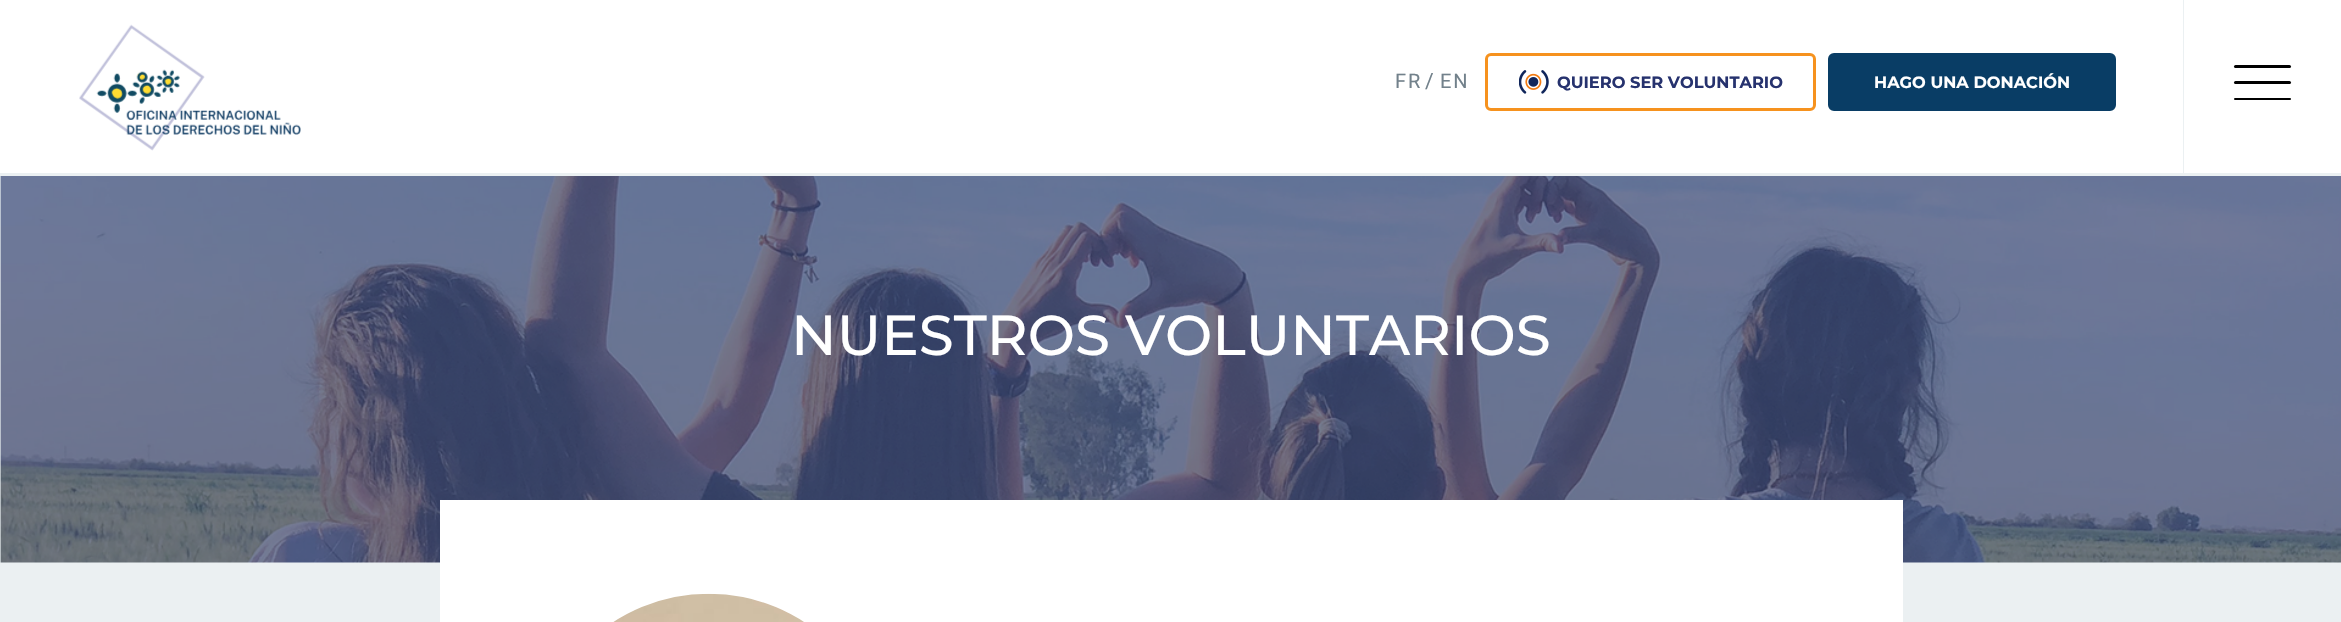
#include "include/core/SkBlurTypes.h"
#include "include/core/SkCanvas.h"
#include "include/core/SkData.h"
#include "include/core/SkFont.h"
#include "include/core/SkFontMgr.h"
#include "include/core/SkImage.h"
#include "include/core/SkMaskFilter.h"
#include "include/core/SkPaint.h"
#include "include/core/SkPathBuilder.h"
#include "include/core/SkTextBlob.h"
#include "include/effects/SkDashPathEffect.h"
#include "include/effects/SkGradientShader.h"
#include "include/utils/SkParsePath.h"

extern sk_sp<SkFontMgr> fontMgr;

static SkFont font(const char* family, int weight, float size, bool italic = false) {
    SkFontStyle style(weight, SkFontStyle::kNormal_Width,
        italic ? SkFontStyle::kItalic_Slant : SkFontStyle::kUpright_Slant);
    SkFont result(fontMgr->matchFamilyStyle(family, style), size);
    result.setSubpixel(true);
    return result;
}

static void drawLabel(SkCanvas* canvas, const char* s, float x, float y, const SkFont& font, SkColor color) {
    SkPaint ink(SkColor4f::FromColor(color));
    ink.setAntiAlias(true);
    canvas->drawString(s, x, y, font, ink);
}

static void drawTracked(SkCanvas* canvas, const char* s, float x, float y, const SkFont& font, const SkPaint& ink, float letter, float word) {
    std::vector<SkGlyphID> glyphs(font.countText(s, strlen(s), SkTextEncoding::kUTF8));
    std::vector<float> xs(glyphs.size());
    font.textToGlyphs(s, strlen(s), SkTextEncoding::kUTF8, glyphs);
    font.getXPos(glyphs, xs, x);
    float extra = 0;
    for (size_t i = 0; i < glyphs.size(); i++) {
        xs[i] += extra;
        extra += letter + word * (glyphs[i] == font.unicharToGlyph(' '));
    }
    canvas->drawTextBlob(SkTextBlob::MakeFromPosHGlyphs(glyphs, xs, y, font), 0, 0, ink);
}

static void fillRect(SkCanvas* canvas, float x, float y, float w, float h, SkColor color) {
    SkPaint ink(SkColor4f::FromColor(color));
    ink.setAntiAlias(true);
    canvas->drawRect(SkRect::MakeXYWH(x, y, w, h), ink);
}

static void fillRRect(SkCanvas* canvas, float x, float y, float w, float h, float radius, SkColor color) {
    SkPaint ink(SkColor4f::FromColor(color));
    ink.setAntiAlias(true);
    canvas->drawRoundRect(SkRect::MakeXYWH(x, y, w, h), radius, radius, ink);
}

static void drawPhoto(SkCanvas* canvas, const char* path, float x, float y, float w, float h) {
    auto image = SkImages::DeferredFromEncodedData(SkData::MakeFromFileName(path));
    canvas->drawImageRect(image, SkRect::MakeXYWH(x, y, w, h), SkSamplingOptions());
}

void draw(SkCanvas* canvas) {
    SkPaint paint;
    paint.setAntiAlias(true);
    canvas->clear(0xFFEBF0F2);
    fillRect(canvas, 0, 0, 2341, 173, 0xFFFFFFFF);
    drawPhoto(canvas, "assets/img1.png", 79, 24, 222, 127);
    SkFont font1 = font("Roboto", 400, 20);
    paint.setColor(0xFF72818B);
    drawTracked(canvas, "FR", 1395, 88, font1, paint, 2, 0);
    SkFont font2 = font("Roboto", 400, 21);
    drawLabel(canvas, "/", 1425, 88, font2, 0xFF72818B);
    drawTracked(canvas, "EN", 1440, 88, font1, paint, 2, 0);
    paint.setStroke(true);
    paint.setStrokeWidth(3);
    paint.setColor(0xFFF6921E);
    canvas->drawRoundRect(SkRect::MakeXYWH(1486.5f, 54.5f, 328, 55), 4.5f, 4.5f, paint);
    drawPhoto(canvas, "assets/img2.png", 1519, 70, 30, 24);
    SkFont font3 = font("Montserrat", 700, 16.25f);
    drawLabel(canvas, "QUIERO SER VOLUNTARIO", 1557, 88, font3, 0xFF26326E);
    paint.setStroke(false);
    paint.setColor(0xFF093D65);
    canvas->drawRoundRect(SkRect::MakeXYWH(1829.5f, 54.5f, 285, 55), 4.5f, 4.5f, paint);
    paint.setStroke(true);
    canvas->drawRoundRect(SkRect::MakeXYWH(1829.5f, 54.5f, 285, 55), 4.5f, 4.5f, paint);
    drawLabel(canvas, "HAGO UNA DONACIÓN", 1874, 88, font3, 0xFFFFFFFF);
    fillRect(canvas, 2183, 0, 1, 174, 0xFFEBF0F2);
    fillRRect(canvas, 2234, 65, 57, 3, 1.5f, 0xFF000000);
    fillRRect(canvas, 2234, 81, 57, 3, 1.5f, 0xFF000000);
    fillRRect(canvas, 2234, 98, 57, 2, 1, 0xFF000000);
    drawPhoto(canvas, "assets/img3.png", 0, 176, 2341, 387);
    SkFont font4 = font("Montserrat", 500, 56.25f);
    drawLabel(canvas, "NUESTROS VOLUNTARIOS", 791, 355, font4, 0xFFFFFFFF);
    fillRect(canvas, 440, 500, 1463, 122, 0xFFFFFFFF);
    drawPhoto(canvas, "assets/img4.png", 613, 593, 191, 29);
}
